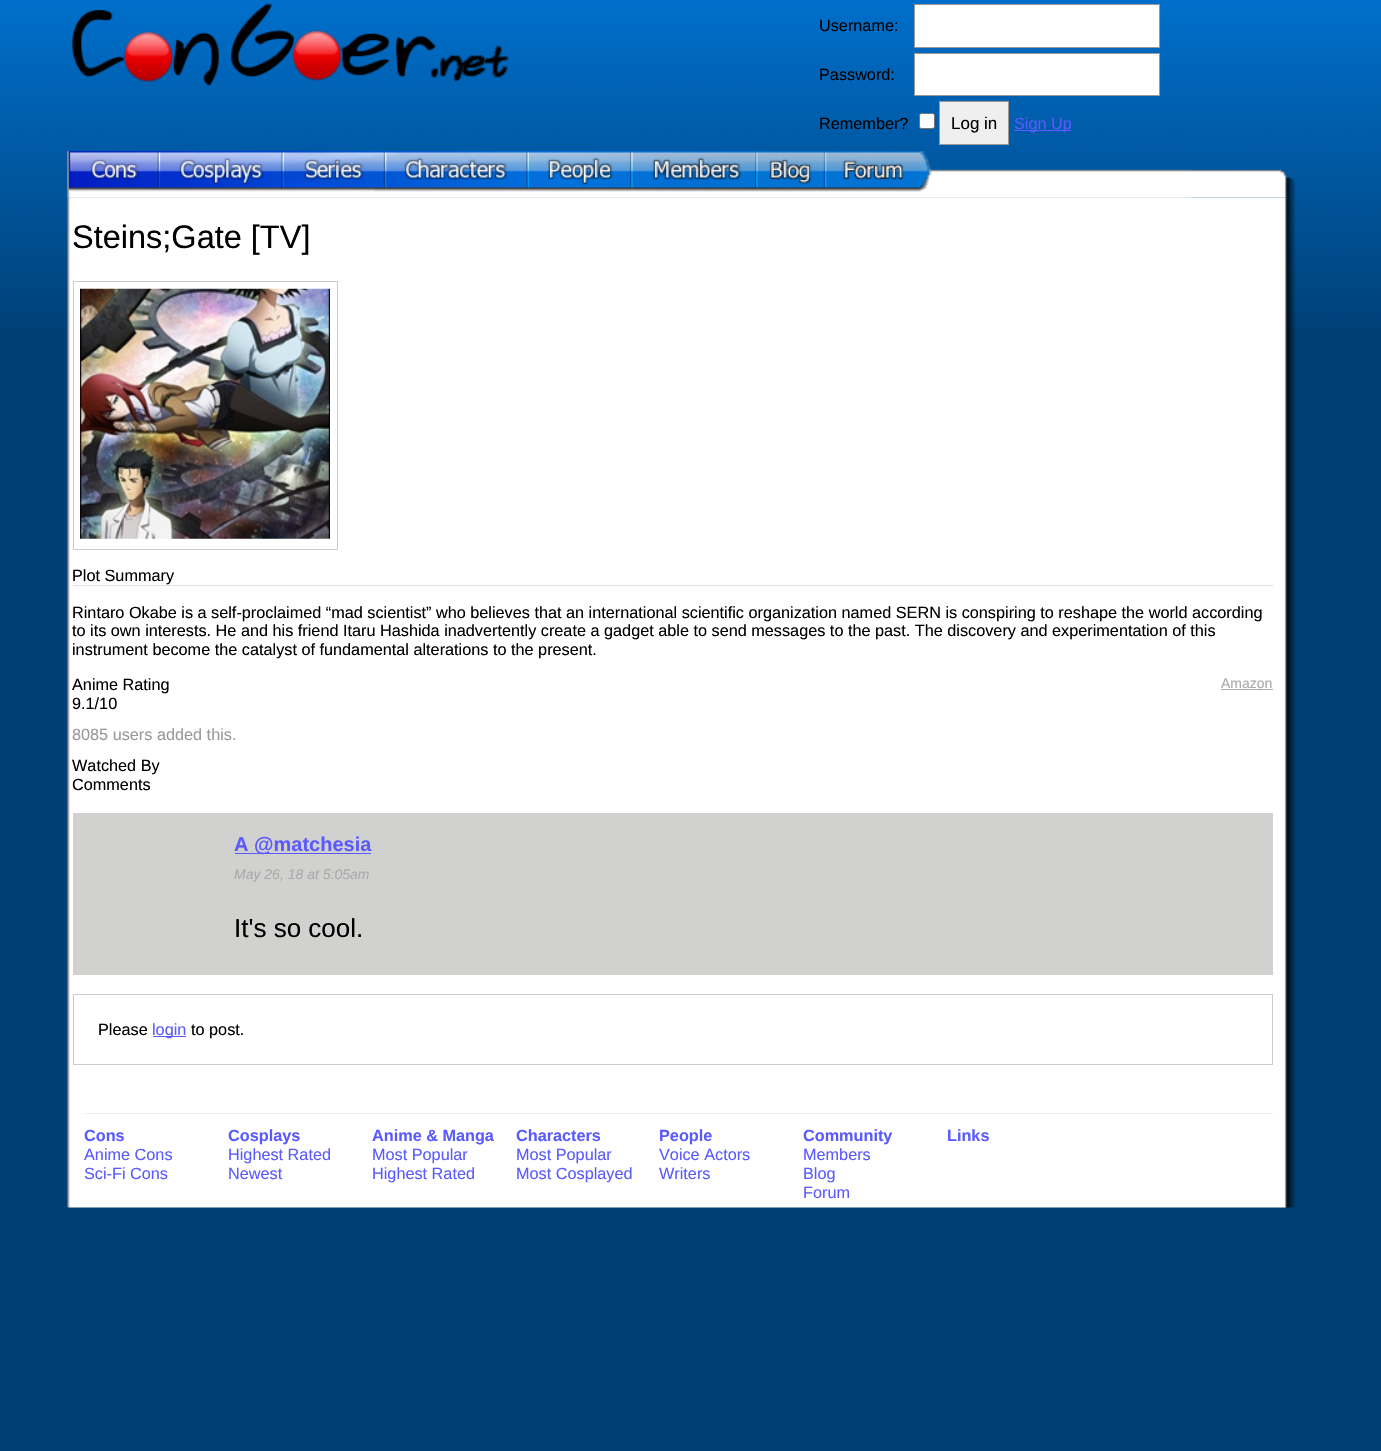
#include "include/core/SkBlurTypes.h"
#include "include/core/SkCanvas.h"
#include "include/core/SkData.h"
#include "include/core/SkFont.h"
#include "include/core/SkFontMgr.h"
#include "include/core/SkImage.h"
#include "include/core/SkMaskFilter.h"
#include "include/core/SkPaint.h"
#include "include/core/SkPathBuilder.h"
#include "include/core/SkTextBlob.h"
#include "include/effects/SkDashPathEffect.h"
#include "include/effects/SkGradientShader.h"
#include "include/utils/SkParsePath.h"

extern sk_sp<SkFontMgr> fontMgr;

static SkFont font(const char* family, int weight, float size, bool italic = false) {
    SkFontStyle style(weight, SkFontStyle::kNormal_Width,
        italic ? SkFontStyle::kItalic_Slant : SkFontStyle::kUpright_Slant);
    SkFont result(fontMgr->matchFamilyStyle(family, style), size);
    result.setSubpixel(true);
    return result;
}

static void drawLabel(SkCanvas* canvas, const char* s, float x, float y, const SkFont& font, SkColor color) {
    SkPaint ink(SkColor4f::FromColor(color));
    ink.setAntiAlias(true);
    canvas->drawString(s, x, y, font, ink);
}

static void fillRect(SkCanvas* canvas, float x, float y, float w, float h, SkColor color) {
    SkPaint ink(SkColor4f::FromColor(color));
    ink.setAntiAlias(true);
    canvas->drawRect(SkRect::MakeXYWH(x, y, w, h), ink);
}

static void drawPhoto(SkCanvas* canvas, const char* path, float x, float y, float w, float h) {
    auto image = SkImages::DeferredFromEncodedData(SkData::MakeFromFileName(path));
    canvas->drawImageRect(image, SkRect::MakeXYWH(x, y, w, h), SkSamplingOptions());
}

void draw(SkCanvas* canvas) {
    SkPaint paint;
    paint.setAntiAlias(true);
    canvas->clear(0xFF003F74);
    drawPhoto(canvas, "assets/img1.png", 0, 0, 1381, 328);
    drawPhoto(canvas, "assets/img2.png", 72, 3, 437, 83);
    SkFont font1 = font("Liberation Sans", 400, 16.25f);
    drawLabel(canvas, "Username:", 819, 31, font1, 0xFF000000);
    paint.setColor(0xFFFFFFFF);
    canvas->drawRect(SkRect::MakeXYWH(914.5f, 4.5f, 245, 43), paint);
    paint.setStroke(true);
    paint.setStrokeWidth(1);
    paint.setColor(0xFF999999);
    canvas->drawRect(SkRect::MakeXYWH(914.5f, 4.5f, 245, 43), paint);
    drawLabel(canvas, "Password:", 819, 80, font1, 0xFF000000);
    paint.setStroke(false);
    paint.setColor(0xFFFFFFFF);
    canvas->drawRect(SkRect::MakeXYWH(914.5f, 53.5f, 245, 42), paint);
    paint.setStroke(true);
    paint.setColor(0xFF999999);
    canvas->drawRect(SkRect::MakeXYWH(914.5f, 53.5f, 245, 42), paint);
    drawLabel(canvas, "Remember?", 819, 129, font1, 0xFF000000);
    paint.setStroke(false);
    paint.setColor(0xFFFFFFFF);
    canvas->drawRoundRect(SkRect::MakeXYWH(919.5f, 113.5f, 15, 15), 2, 2, paint);
    paint.setStroke(true);
    paint.setColor(0xFF767676);
    canvas->drawRoundRect(SkRect::MakeXYWH(919.5f, 113.5f, 15, 15), 2, 2, paint);
    paint.setStroke(false);
    paint.setColor(0xFFEFEFEF);
    canvas->drawRect(SkRect::MakeXYWH(939.5f, 101.5f, 69, 43), paint);
    paint.setStroke(true);
    paint.setColor(0xFF999999);
    canvas->drawRect(SkRect::MakeXYWH(939.5f, 101.5f, 69, 43), paint);
    SkFont font2 = font("Liberation Sans", 400, 17);
    drawLabel(canvas, "Log in", 951, 129, font2, 0xFF000000);
    fillRect(canvas, 1014, 130, 57, 1, 0xFF5A5AFF);
    drawLabel(canvas, "Sign Up", 1014, 129, font1, 0xFF5A5AFF);
    drawPhoto(canvas, "assets/img3.png", 67, 151, 1228, 47);
    drawPhoto(canvas, "assets/img5.png", 67, 197, 1228, 1011);
    drawPhoto(canvas, "assets/img4.png", 67, 151, 1125, 47);
    SkFont font3 = font("Liberation Sans", 400, 32.5f);
    drawLabel(canvas, "Steins;Gate [TV]", 72, 248, font3, 0xFF000000);
    paint.setColor(0xFFCCCCCC);
    canvas->drawRect(SkRect::MakeXYWH(73.5f, 281.5f, 264, 268), paint);
    drawPhoto(canvas, "assets/img6.png", 80, 288, 250, 251);
    fillRect(canvas, 73, 585, 1200, 1, 0xFFDDDDDD);
    drawLabel(canvas, "Plot Summary", 72, 581, font1, 0xFF000000);
    drawLabel(canvas, "Rintaro Okabe is a self-proclaimed “mad scientist” who believes that an international scientific organization named SERN is conspiring to reshape the world according", 72, 618, font1, 0xFF000000);
    drawLabel(canvas, "to its own interests. He and his friend Itaru Hashida inadvertently create a gadget able to send messages to the past. The discovery and experimentation of this", 72, 636, font1, 0xFF000000);
    drawLabel(canvas, "instrument become the catalyst of fundamental alterations to the present.", 72, 655, font1, 0xFF000000);
    drawLabel(canvas, "Anime Rating", 72, 690, font1, 0xFF000000);
    drawLabel(canvas, "9.1/10", 72, 709, font1, 0xFF000000);
    SkFont font4 = font("Liberation Sans", 400, 14);
    drawLabel(canvas, "Amazon", 1221, 688, font4, 0xFFAAAAAA);
    fillRect(canvas, 1221, 689, 52, 1, 0xFFAAAAAA);
    drawLabel(canvas, "8085 users added this.", 72, 740, font1, 0xFF999999);
    drawLabel(canvas, "Watched By", 72, 771, font1, 0xFF000000);
    drawLabel(canvas, "Comments", 72, 790, font1, 0xFF000000);
    fillRect(canvas, 73, 813, 1200, 162, 0xFFD1D1D0);
    fillRect(canvas, 235, 853, 136, 1, 0xFF5A5AFF);
    SkFont font5 = font("Liberation Sans", 700, 20);
    drawLabel(canvas, "A @matchesia", 234, 851, font5, 0xFF5A5AFF);
    SkFont font6 = font("Liberation Sans", 400, 14, true);
    drawLabel(canvas, "May 26, 18 at 5:05am", 234, 879, font6, 0xFFAAAAAA);
    SkFont font7 = font("Liberation Sans", 400, 26);
    drawLabel(canvas, "It's so cool.", 234, 937, font7, 0xFF000000);
    canvas->drawRect(SkRect::MakeXYWH(73.5f, 994.5f, 1199, 70), paint);
    drawLabel(canvas, "Please", 98, 1035, font1, 0xFF000000);
    fillRect(canvas, 153, 1036, 33, 1, 0xFF5A5AFF);
    drawLabel(canvas, "login", 152, 1035, font1, 0xFF5A5AFF);
    drawLabel(canvas, "to post.", 191, 1035, font1, 0xFF000000);
    fillRect(canvas, 85, 1113, 1188, 1, 0xFFEBEBEB);
    SkFont font8 = font("Liberation Sans", 700, 16.25f);
    drawLabel(canvas, "Cons", 84, 1141, font8, 0xFF5A5AFF);
    drawLabel(canvas, "Anime Cons", 84, 1160, font1, 0xFF5A5AFF);
    drawLabel(canvas, "Sci-Fi Cons", 84, 1179, font1, 0xFF5A5AFF);
    drawLabel(canvas, "Cosplays", 228, 1141, font8, 0xFF5A5AFF);
    drawLabel(canvas, "Highest Rated", 228, 1160, font1, 0xFF5A5AFF);
    drawLabel(canvas, "Newest", 228, 1179, font1, 0xFF5A5AFF);
    drawLabel(canvas, "Anime & Manga", 372, 1141, font8, 0xFF5A5AFF);
    drawLabel(canvas, "Most Popular", 372, 1160, font1, 0xFF5A5AFF);
    drawLabel(canvas, "Highest Rated", 372, 1179, font1, 0xFF5A5AFF);
    drawLabel(canvas, "Characters", 516, 1141, font8, 0xFF5A5AFF);
    drawLabel(canvas, "Most Popular", 516, 1160, font1, 0xFF5A5AFF);
    drawLabel(canvas, "Most Cosplayed", 516, 1179, font1, 0xFF5A5AFF);
    drawLabel(canvas, "People", 659, 1141, font8, 0xFF5A5AFF);
    drawLabel(canvas, "Voice Actors", 659, 1160, font1, 0xFF5A5AFF);
    drawLabel(canvas, "Writers", 659, 1179, font1, 0xFF5A5AFF);
    drawLabel(canvas, "Community", 803, 1141, font8, 0xFF5A5AFF);
    drawLabel(canvas, "Members", 803, 1160, font1, 0xFF5A5AFF);
    drawLabel(canvas, "Blog", 803, 1179, font1, 0xFF5A5AFF);
    drawLabel(canvas, "Forum", 803, 1198, font1, 0xFF5A5AFF);
    drawLabel(canvas, "Links", 947, 1141, font8, 0xFF5A5AFF);
}
